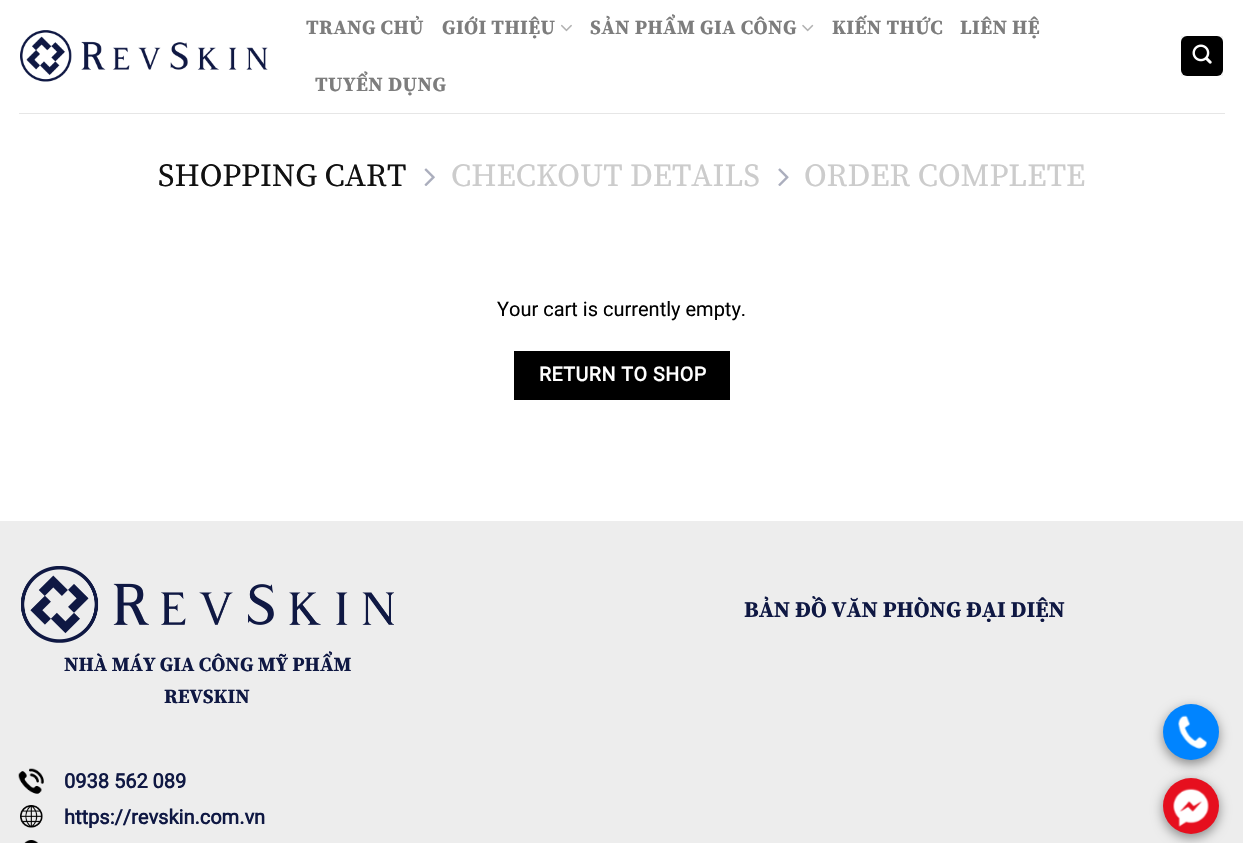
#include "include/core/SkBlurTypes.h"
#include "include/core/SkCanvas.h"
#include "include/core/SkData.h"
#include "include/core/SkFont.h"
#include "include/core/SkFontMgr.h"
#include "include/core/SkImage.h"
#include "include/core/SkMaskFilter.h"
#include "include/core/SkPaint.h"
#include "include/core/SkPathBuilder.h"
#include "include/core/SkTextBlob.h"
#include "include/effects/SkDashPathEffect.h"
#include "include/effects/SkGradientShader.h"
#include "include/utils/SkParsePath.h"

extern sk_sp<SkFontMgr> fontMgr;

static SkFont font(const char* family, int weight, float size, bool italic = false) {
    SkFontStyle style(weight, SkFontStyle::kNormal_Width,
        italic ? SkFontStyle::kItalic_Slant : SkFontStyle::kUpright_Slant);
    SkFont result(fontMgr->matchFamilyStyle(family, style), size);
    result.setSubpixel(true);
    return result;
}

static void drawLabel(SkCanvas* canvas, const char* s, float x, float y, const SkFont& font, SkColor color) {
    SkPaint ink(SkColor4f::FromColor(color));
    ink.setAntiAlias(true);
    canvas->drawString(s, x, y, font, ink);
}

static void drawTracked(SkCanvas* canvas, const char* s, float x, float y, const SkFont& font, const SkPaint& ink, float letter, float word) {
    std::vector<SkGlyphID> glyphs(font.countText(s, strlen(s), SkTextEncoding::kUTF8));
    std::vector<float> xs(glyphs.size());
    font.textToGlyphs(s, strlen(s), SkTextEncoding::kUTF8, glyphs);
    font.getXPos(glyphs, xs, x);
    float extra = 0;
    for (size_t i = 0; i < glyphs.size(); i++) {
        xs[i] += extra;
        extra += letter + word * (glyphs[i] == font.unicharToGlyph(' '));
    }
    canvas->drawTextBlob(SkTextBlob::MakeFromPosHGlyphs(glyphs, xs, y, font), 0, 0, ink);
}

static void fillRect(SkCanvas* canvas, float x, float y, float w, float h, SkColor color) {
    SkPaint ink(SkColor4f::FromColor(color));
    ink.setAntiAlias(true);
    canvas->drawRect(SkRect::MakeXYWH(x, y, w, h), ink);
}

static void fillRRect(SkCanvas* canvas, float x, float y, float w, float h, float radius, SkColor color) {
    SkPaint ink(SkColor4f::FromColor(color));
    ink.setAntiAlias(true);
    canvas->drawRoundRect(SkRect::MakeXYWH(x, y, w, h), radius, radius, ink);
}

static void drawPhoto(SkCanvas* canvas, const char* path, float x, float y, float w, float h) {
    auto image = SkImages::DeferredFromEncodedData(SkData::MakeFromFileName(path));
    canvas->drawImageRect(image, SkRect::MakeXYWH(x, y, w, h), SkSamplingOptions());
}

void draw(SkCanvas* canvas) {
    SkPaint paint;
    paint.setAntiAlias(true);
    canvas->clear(0xFFFFFFFF);
    drawPhoto(canvas, "assets/img1.png", 20, 30, 248, 52);
    SkFont font1 = font("Source Serif Pro", 700, 20);
    paint.setColor(0xFF7D7D7D);
    drawTracked(canvas, "TRANG CHỦ", 306, 34, font1, paint, 0.4f, 0);
    drawTracked(canvas, "GIỚI THIỆU", 442, 34, font1, paint, 0.4f, 0);
    drawPhoto(canvas, "assets/img2.png", 561, 24, 11, 8);
    drawTracked(canvas, "SẢN PHẨM GIA CÔNG", 590, 34, font1, paint, 0.4f, 0);
    drawPhoto(canvas, "assets/img3.png", 802, 24, 12, 8);
    drawTracked(canvas, "KIẾN THỨC", 832, 34, font1, paint, 0.4f, 0);
    drawTracked(canvas, "LIÊN HỆ", 960, 34, font1, paint, 0.4f, 0);
    drawTracked(canvas, "TUYỂN DỤNG", 315, 91, font1, paint, 0.4f, 0);
    fillRRect(canvas, 1181, 36, 42, 40, 6, 0xFF000000);
    paint.setStroke(true);
    paint.setStrokeWidth(1);
    paint.setColor(0x0D000000);
    canvas->drawRect(SkRect::MakeXYWH(1181.5f, 36.5f, 41, 39), paint);
    drawPhoto(canvas, "assets/img4.png", 1192, 44, 20, 20);
    fillRect(canvas, 19, 113, 1206, 1, 0xFFE6E6E6);
    SkFont font2 = font("Source Serif Pro", 400, 32);
    drawLabel(canvas, "SHOPPING CART", 158, 186, font2, 0xFF111111);
    drawPhoto(canvas, "assets/img5.png", 424, 168, 11, 18);
    drawLabel(canvas, "CHECKOUT DETAILS", 451, 186, font2, 0xFFCCCCCC);
    drawPhoto(canvas, "assets/img6.png", 778, 168, 11, 18);
    drawLabel(canvas, "ORDER COMPLETE", 804, 186, font2, 0xFFCCCCCC);
    SkFont font3 = font("Roboto", 400, 20);
    drawLabel(canvas, "Your cart is currently empty.", 497, 316, font3, 0xFF000000);
    fillRect(canvas, 514, 351, 216, 49, 0xFF000000);
    SkFont font4 = font("Roboto", 700, 19.5f);
    paint.setStroke(false);
    paint.setColor(0xFFFFFFFF);
    drawTracked(canvas, "RETURN TO SHOP", 539, 381, font4, paint, 0.6f, 0);
    fillRect(canvas, 0, 521, 1243, 322, 0xFFEDEDED);
    SkFont font5 = font("Source Serif Pro", 700, 22.5f);
    drawLabel(canvas, "BẢN ĐỒ VĂN PHÒNG ĐẠI DIỆN", 744, 617, font5, 0xFF0F1843);
    drawPhoto(canvas, "assets/img7.png", 21, 566, 373, 77);
    drawLabel(canvas, "NHÀ MÁY GIA CÔNG MỸ PHẨM", 64, 671, font1, 0xFF0F1843);
    drawLabel(canvas, "REVSKIN", 164, 703, font1, 0xFF0F1843);
    drawPhoto(canvas, "assets/img8.png", 18, 768, 26, 26);
    SkFont font6 = font("Roboto", 700, 20);
    drawLabel(canvas, "0938 562 089", 64, 788, font6, 0xFF0F1843);
    drawPhoto(canvas, "assets/img9.png", 20, 805, 23, 23);
    drawLabel(canvas, "https://revskin.com.vn", 64, 824, font6, 0xFF0F1843);
    drawPhoto(canvas, "assets/img10.png", 24, 840, 15, 3);
    paint.setColor(0xFF888888);
    paint.setMaskFilter(SkMaskFilter::MakeBlur(kNormal_SkBlurStyle, 6));
    canvas->drawRoundRect(SkRect::MakeXYWH(1163, 708, 56, 56), 28, 28, paint);
    paint.setMaskFilter(nullptr);
    paint.setColor(0xFF0084FF);
    canvas->drawCircle(1191, 732, 28, paint);
    drawPhoto(canvas, "assets/img11.png", 1178, 715, 29, 34);
    paint.setColor(0xFF888888);
    paint.setMaskFilter(SkMaskFilter::MakeBlur(kNormal_SkBlurStyle, 6));
    canvas->drawRoundRect(SkRect::MakeXYWH(1163, 781, 56, 57), 28, 28, paint);
    paint.setMaskFilter(nullptr);
    paint.setColor(0xFFE60F1E);
    canvas->drawCircle(1191, 806, 28, paint);
    drawPhoto(canvas, "assets/img12.png", 1173, 788, 36, 39);
}
